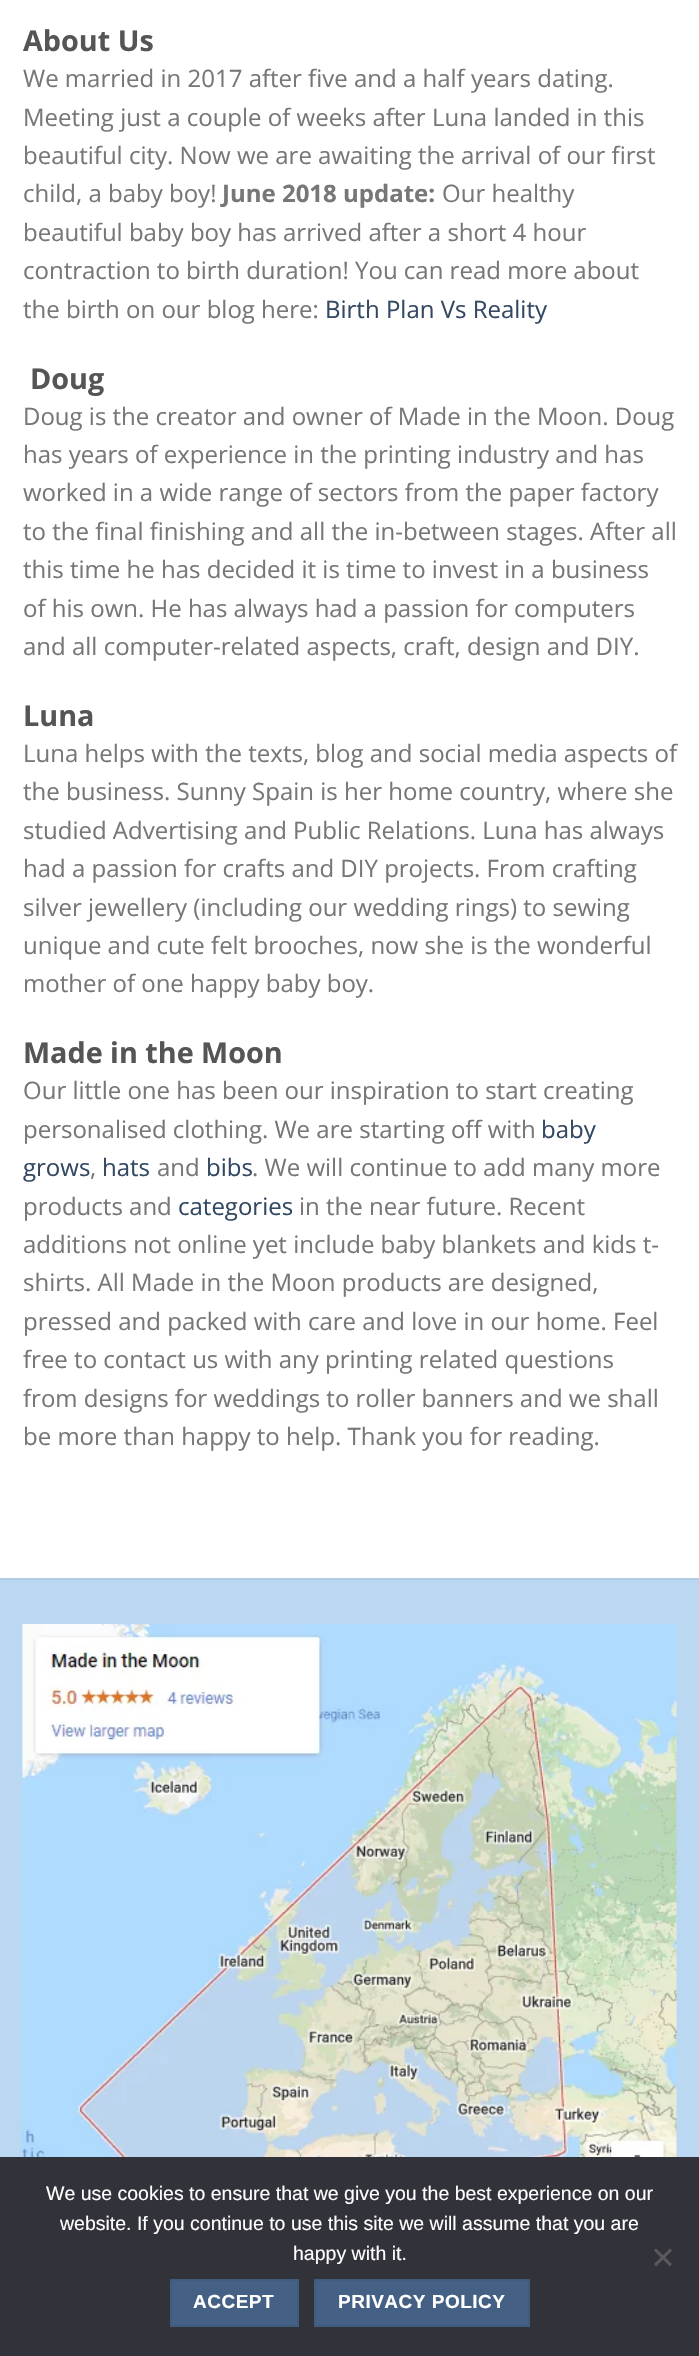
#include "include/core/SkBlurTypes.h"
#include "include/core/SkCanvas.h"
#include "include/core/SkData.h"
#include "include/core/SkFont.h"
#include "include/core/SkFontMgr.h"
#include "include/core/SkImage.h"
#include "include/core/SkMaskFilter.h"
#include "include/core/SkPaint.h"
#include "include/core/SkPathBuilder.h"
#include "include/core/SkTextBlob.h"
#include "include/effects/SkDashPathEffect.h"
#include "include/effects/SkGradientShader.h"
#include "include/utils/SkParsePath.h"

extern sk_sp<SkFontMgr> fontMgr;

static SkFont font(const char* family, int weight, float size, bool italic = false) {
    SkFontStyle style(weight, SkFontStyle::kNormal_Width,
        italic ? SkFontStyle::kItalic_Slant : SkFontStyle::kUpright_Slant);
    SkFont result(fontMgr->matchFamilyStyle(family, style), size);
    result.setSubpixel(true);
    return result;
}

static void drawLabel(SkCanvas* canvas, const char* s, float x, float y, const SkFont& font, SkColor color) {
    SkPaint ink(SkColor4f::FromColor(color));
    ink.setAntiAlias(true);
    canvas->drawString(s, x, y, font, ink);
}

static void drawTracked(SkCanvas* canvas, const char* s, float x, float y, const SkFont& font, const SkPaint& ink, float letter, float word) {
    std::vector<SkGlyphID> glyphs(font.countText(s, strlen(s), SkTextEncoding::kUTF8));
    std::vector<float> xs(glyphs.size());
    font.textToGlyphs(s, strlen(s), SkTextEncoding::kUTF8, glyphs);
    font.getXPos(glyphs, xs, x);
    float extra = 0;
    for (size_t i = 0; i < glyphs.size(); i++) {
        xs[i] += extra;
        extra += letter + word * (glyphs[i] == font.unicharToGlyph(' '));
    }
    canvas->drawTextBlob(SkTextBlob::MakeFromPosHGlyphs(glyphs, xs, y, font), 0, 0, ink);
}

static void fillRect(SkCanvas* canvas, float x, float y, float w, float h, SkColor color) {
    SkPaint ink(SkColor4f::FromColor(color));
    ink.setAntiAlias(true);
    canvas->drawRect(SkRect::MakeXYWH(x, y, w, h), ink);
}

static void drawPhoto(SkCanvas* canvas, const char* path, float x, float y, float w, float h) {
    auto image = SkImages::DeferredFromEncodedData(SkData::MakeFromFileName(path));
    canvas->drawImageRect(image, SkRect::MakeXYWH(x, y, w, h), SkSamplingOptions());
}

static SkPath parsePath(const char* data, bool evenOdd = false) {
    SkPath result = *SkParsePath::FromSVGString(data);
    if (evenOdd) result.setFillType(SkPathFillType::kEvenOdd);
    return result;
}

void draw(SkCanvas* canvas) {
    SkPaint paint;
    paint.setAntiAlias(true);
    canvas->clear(0xFFFFFFFF);
    SkFont font1 = font("Open Sans", 700, 28.75f);
    drawLabel(canvas, "About Us", 23, 51, font1, 0xFF555555);
    SkFont font2 = font("Open Sans", 400, 24);
    drawLabel(canvas, "We married in 2017 after five and a half years dating.", 23, 87, font2, 0xFF777777);
    drawLabel(canvas, "Meeting just a couple of weeks after Luna landed in this", 23, 126, font2, 0xFF777777);
    drawLabel(canvas, "beautiful city. Now we are awaiting the arrival of our first", 23, 164, font2, 0xFF777777);
    drawLabel(canvas, "child, a baby boy!", 23, 202, font2, 0xFF777777);
    SkFont font3 = font("Open Sans", 700, 24);
    drawLabel(canvas, "June 2018 update:", 222, 202, font3, 0xFF777777);
    drawLabel(canvas, "Our healthy", 442, 202, font2, 0xFF777777);
    drawLabel(canvas, "beautiful baby boy has arrived after a short 4 hour", 23, 241, font2, 0xFF777777);
    drawLabel(canvas, "contraction to birth duration! You can read more about", 23, 279, font2, 0xFF777777);
    drawLabel(canvas, "the birth on our blog here:", 23, 318, font2, 0xFF777777);
    drawLabel(canvas, "Birth Plan Vs Reality", 325, 318, font2, 0xFF334862);
    drawLabel(canvas, "Doug", 30, 389, font1, 0xFF555555);
    drawLabel(canvas, "Doug is the creator and owner of Made in the Moon. Doug", 23, 425, font2, 0xFF777777);
    drawLabel(canvas, "has years of experience in the printing industry and has", 23, 463, font2, 0xFF777777);
    drawLabel(canvas, "worked in a wide range of sectors from the paper factory", 23, 501, font2, 0xFF777777);
    drawLabel(canvas, "to the final finishing and all the in-between stages. After all", 23, 540, font2, 0xFF777777);
    drawLabel(canvas, "this time he has decided it is time to invest in a business", 23, 578, font2, 0xFF777777);
    drawLabel(canvas, "of his own. He has always had a passion for computers", 23, 617, font2, 0xFF777777);
    drawLabel(canvas, "and all computer-related aspects, craft, design and DIY.", 23, 655, font2, 0xFF777777);
    drawLabel(canvas, "Luna", 23, 726, font1, 0xFF555555);
    drawLabel(canvas, "Luna helps with the texts, blog and social media aspects of", 23, 762, font2, 0xFF777777);
    drawLabel(canvas, "the business. Sunny Spain is her home country, where she", 23, 800, font2, 0xFF777777);
    drawLabel(canvas, "studied Advertising and Public Relations. Luna has always", 23, 839, font2, 0xFF777777);
    drawLabel(canvas, "had a passion for crafts and DIY projects. From crafting", 23, 877, font2, 0xFF777777);
    drawLabel(canvas, "silver jewellery (including our wedding rings) to sewing", 23, 916, font2, 0xFF777777);
    drawLabel(canvas, "unique and cute felt brooches, now she is the wonderful", 23, 954, font2, 0xFF777777);
    drawLabel(canvas, "mother of one happy baby boy.", 23, 992, font2, 0xFF777777);
    drawLabel(canvas, "Made in the Moon", 23, 1063, font1, 0xFF555555);
    drawLabel(canvas, "Our little one has been our inspiration to start creating", 23, 1099, font2, 0xFF777777);
    drawLabel(canvas, "personalised clothing. We are starting off with", 23, 1138, font2, 0xFF777777);
    drawLabel(canvas, "baby", 541, 1138, font2, 0xFF334862);
    drawLabel(canvas, "grows", 23, 1176, font2, 0xFF334862);
    drawLabel(canvas, ",", 90, 1176, font2, 0xFF777777);
    drawLabel(canvas, "hats", 102, 1176, font2, 0xFF334862);
    drawLabel(canvas, "and", 157, 1176, font2, 0xFF777777);
    drawLabel(canvas, "bibs", 206, 1176, font2, 0xFF334862);
    drawLabel(canvas, ". We will continue to add many more", 252, 1176, font2, 0xFF777777);
    drawLabel(canvas, "products and", 23, 1215, font2, 0xFF777777);
    drawLabel(canvas, "categories", 178, 1215, font2, 0xFF334862);
    drawLabel(canvas, "in the near future. Recent", 299, 1215, font2, 0xFF777777);
    drawLabel(canvas, "additions not online yet include baby blankets and kids t-", 23, 1253, font2, 0xFF777777);
    drawLabel(canvas, "shirts. All Made in the Moon products are designed,", 23, 1291, font2, 0xFF777777);
    drawLabel(canvas, "pressed and packed with care and love in our home. Feel", 23, 1330, font2, 0xFF777777);
    drawLabel(canvas, "free to contact us with any printing related questions", 23, 1368, font2, 0xFF777777);
    drawLabel(canvas, "from designs for weddings to roller banners and we shall", 23, 1407, font2, 0xFF777777);
    drawLabel(canvas, "be more than happy to help. Thank you for reading.", 23, 1445, font2, 0xFF777777);
    fillRect(canvas, 0, 1580, 699, 577, 0xFFBAD8F2);
    fillRect(canvas, 0, 1578, 699, 2, 0xFFB1CDE6);
    drawPhoto(canvas, "assets/img1.png", 22, 1624, 655, 533);
    fillRect(canvas, 0, 2157, 699, 199, 0xFF32323A);
    SkFont font4 = font("Liberation Sans", 400, 19.5f);
    drawLabel(canvas, "We use cookies to ensure that we give you the best experience on our", 46, 2200, font4, 0xFFFFFFFF);
    drawLabel(canvas, "website. If you continue to use this site we will assume that you are", 60, 2230, font4, 0xFFFFFFFF);
    drawLabel(canvas, "happy with it.", 293, 2260, font4, 0xFFFFFFFF);
    paint.setColor(0xFF59595D);
    canvas->drawPath(parsePath("M670 2248.5L672 2250.5L656 2266.5L654 2264Z"), paint);
    canvas->drawPath(parsePath("M654 2250.5L656 2248.5L672 2264L670 2266.5Z"), paint);
    paint.setColor(0xFF446084);
    canvas->drawRect(SkRect::MakeXYWH(171, 2280, 127, 46), paint);
    paint.setStroke(true);
    paint.setStrokeWidth(2);
    paint.setColor(0xFF415B7D);
    canvas->drawRect(SkRect::MakeXYWH(171, 2280, 127, 46), paint);
    SkFont font5 = font("Liberation Sans", 700, 19);
    paint.setStroke(false);
    paint.setColor(0xFFFFFFFF);
    drawTracked(canvas, "ACCEPT", 193, 2308, font5, paint, 0.5f, 0);
    paint.setColor(0xFF446084);
    canvas->drawRect(SkRect::MakeXYWH(315, 2280, 214, 46), paint);
    paint.setStroke(true);
    paint.setColor(0xFF415B7D);
    canvas->drawRect(SkRect::MakeXYWH(315, 2280, 214, 46), paint);
    paint.setStroke(false);
    paint.setColor(0xFFFFFFFF);
    drawTracked(canvas, "PRIVACY POLICY", 338, 2308, font5, paint, 0.5f, 0);
}
